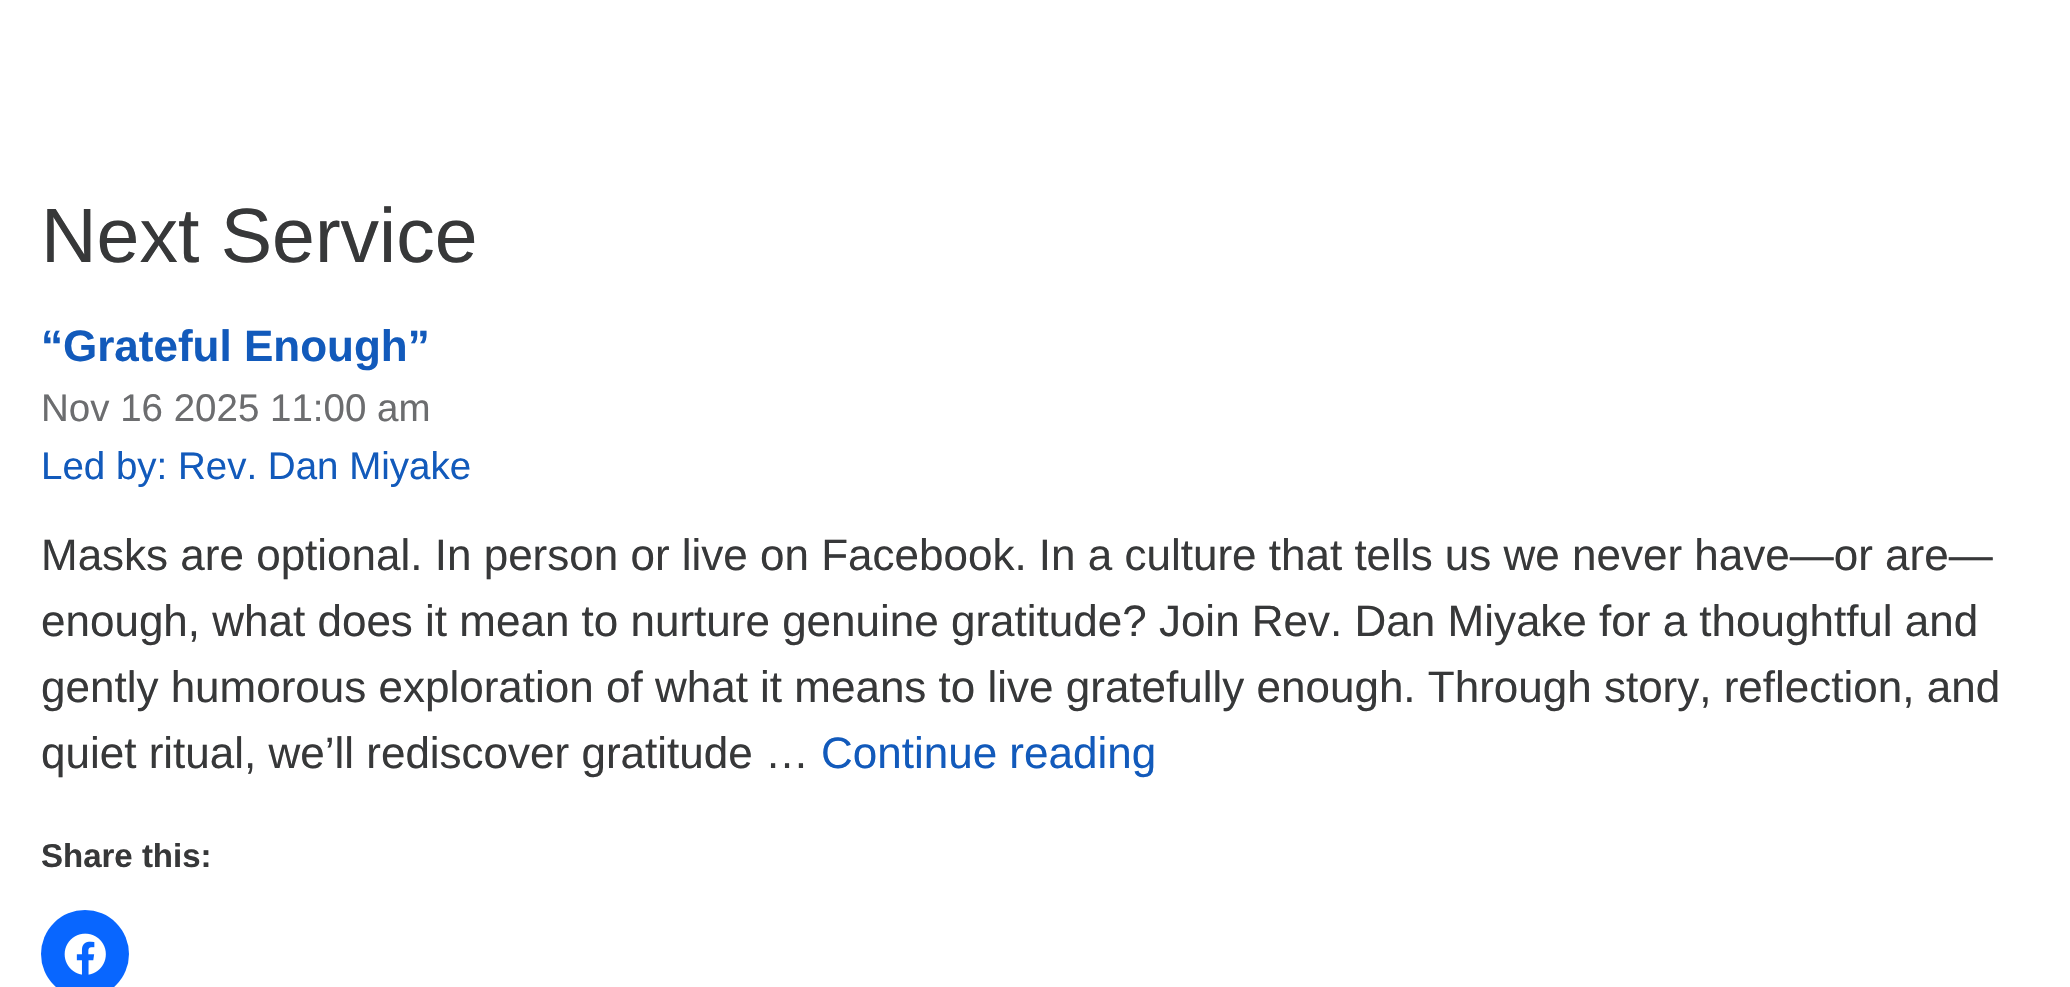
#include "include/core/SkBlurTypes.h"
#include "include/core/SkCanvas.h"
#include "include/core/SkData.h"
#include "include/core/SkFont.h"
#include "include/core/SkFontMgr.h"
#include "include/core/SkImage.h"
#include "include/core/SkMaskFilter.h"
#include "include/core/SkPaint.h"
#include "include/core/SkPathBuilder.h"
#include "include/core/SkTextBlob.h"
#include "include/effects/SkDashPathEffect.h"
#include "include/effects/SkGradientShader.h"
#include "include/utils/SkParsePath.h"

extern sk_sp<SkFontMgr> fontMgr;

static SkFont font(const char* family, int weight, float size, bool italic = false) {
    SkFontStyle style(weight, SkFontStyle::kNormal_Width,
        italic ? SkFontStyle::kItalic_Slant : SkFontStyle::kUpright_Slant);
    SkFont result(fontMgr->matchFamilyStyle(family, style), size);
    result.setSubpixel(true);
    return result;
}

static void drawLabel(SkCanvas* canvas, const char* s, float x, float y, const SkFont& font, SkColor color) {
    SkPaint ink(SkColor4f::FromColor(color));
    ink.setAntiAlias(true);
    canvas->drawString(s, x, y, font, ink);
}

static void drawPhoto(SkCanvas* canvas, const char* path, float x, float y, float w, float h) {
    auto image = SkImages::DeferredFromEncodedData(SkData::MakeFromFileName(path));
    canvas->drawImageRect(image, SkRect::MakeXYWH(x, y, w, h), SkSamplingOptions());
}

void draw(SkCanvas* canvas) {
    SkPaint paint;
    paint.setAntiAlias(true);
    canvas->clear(0xFFFFFFFF);
    SkFont font1 = font("Liberation Sans", 400, 77);
    drawLabel(canvas, "Next Service", 41, 262, font1, 0xFF373839);
    SkFont font2 = font("Liberation Sans", 700, 44);
    drawLabel(canvas, "“Grateful Enough”", 41, 361, font2, 0xFF125ABB);
    SkFont font3 = font("Liberation Sans", 400, 38.5f);
    drawLabel(canvas, "Nov 16 2025 11:00 am", 41, 421, font3, 0xFF6C6D6F);
    drawLabel(canvas, "Led by: Rev. Dan Miyake", 41, 479, font3, 0xFF125ABB);
    SkFont font4 = font("Liberation Sans", 400, 44);
    drawLabel(canvas, "Masks are optional. In person or live on Facebook. In a culture that tells us we never have—or are—", 41, 570, font4, 0xFF373839);
    drawLabel(canvas, "enough, what does it mean to nurture genuine gratitude? Join Rev. Dan Miyake for a thoughtful and", 41, 636, font4, 0xFF373839);
    drawLabel(canvas, "gently humorous exploration of what it means to live gratefully enough. Through story, reflection, and", 41, 702, font4, 0xFF373839);
    drawLabel(canvas, "quiet ritual, we’ll rediscover gratitude …", 41, 768, font4, 0xFF373839);
    drawLabel(canvas, "Continue reading", 821, 768, font4, 0xFF125ABB);
    SkFont font5 = font("Liberation Sans", 700, 33);
    drawLabel(canvas, "Share this:", 41, 867, font5, 0xFF373839);
    paint.setColor(0xFF0866FF);
    canvas->drawCircle(85, 954, 44, paint);
    drawPhoto(canvas, "assets/img1.png", 64, 933, 42, 42);
}
